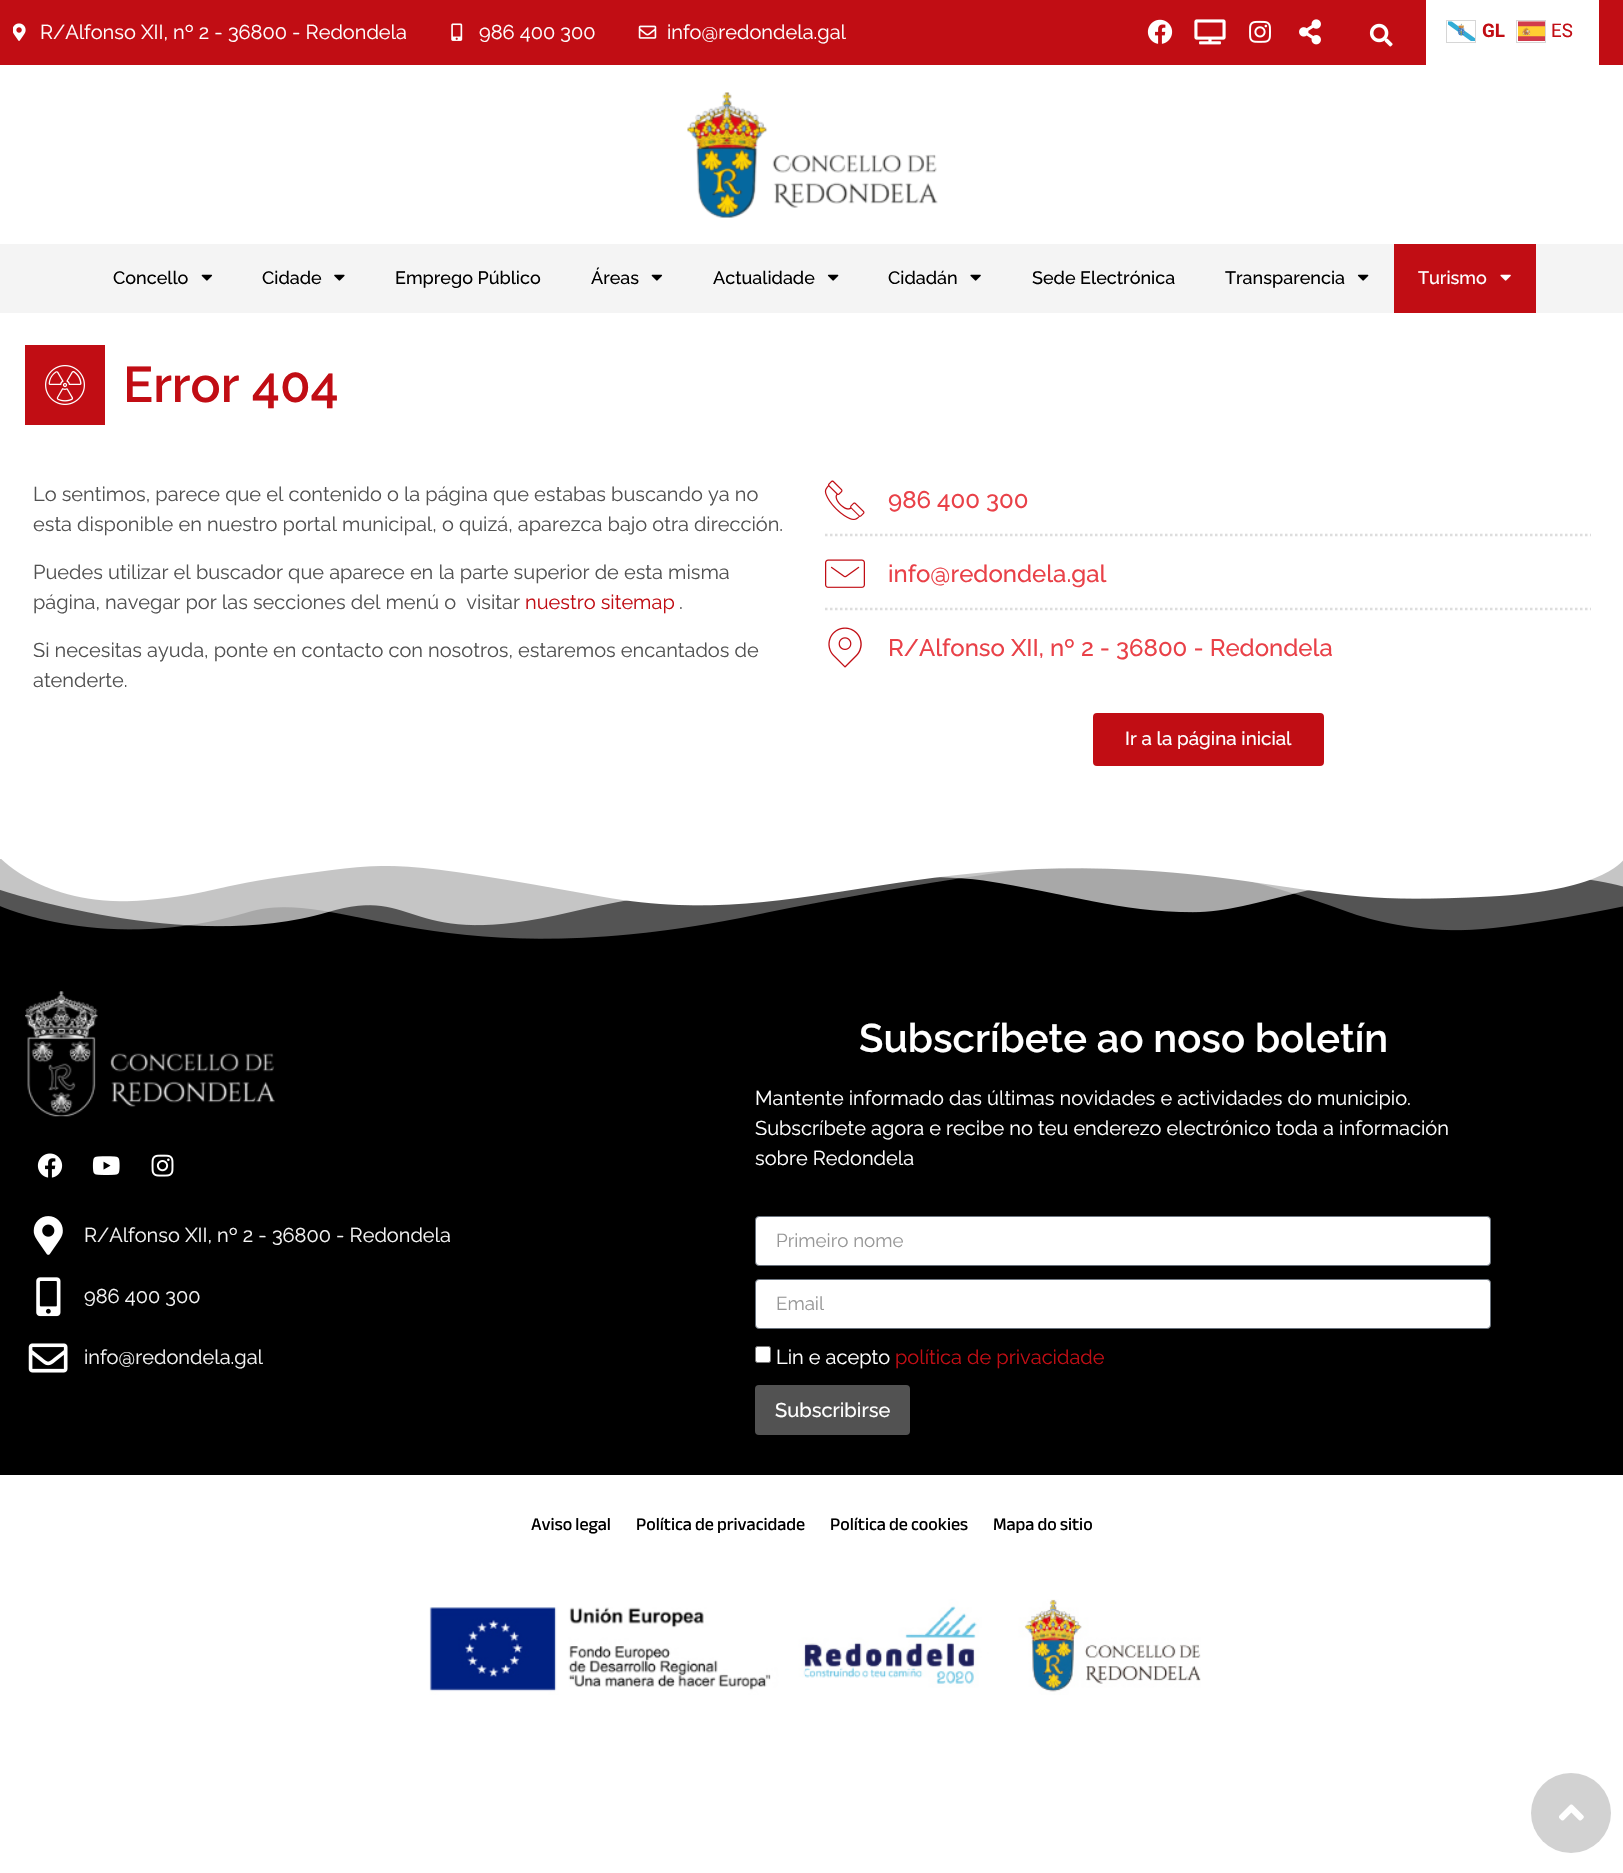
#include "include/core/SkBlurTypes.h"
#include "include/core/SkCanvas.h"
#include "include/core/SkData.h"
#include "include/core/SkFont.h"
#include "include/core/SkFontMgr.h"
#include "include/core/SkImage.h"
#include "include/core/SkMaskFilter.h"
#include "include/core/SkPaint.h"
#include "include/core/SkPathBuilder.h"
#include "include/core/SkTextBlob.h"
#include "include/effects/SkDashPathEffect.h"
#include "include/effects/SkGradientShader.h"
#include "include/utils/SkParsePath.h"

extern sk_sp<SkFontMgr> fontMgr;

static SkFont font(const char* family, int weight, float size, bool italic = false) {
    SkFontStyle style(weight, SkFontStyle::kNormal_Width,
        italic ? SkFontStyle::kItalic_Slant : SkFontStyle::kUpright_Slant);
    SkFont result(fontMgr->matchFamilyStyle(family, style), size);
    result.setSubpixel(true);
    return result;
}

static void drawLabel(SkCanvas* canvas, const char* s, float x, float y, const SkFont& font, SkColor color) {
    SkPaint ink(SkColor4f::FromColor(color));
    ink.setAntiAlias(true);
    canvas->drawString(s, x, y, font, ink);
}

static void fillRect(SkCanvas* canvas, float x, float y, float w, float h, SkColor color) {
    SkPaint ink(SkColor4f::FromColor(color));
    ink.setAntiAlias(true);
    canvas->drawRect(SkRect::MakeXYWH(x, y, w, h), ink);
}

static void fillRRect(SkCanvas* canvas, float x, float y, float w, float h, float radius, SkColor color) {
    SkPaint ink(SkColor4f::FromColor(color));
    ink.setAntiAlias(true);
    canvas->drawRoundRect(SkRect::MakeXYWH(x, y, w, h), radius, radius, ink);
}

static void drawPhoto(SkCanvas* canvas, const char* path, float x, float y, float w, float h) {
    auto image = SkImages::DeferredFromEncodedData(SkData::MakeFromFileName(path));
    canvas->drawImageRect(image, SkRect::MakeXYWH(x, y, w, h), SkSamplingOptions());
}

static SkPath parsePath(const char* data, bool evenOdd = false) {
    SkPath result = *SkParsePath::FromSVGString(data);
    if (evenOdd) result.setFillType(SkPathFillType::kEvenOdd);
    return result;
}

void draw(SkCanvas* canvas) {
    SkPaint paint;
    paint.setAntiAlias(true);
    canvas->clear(0xFFFFFFFF);
    fillRect(canvas, 0, 0, 1623, 65, 0xFFC10D14);
    drawPhoto(canvas, "assets/img1.png", 13, 23, 13, 18);
    SkFont font1 = font("Raleway", 400, 20);
    drawLabel(canvas, "R/Alfonso XII, nº 2 - 36800 - Redondela", 40, 39, font1, 0xFFFFFFFF);
    drawPhoto(canvas, "assets/img2.png", 451, 23, 12, 18);
    drawLabel(canvas, "986 400 300", 479, 39, font1, 0xFFFFFFFF);
    drawPhoto(canvas, "assets/img3.png", 638, 25, 19, 14);
    drawLabel(canvas, "info@redondela.gal", 667, 39, font1, 0xFFFFFFFF);
    drawPhoto(canvas, "assets/img4.png", 1147, 19, 26, 25);
    drawPhoto(canvas, "assets/img5.png", 1194, 19, 32, 26);
    drawPhoto(canvas, "assets/img6.png", 1249, 20, 22, 23);
    drawPhoto(canvas, "assets/img7.png", 1299, 19, 22, 26);
    drawPhoto(canvas, "assets/img8.png", 1369, 23, 24, 24);
    fillRect(canvas, 1426, 0, 173, 65, 0xFFFFFFFF);
    paint.setStroke(true);
    paint.setStrokeWidth(1);
    paint.setColor(0xFFD6D6D6);
    canvas->drawRect(SkRect::MakeXYWH(1446.5f, 20.5f, 29, 22), paint);
    drawPhoto(canvas, "assets/img9.png", 1448, 21, 27, 20);
    SkFont font2 = font("Roboto", 700, 18.75f);
    drawLabel(canvas, "GL", 1482, 37, font2, 0xFFC10D14);
    canvas->drawRect(SkRect::MakeXYWH(1516.5f, 20.5f, 29, 22), paint);
    drawPhoto(canvas, "assets/img10.png", 1518, 21, 27, 20);
    SkFont font3 = font("Roboto", 400, 18.75f);
    drawLabel(canvas, "ES", 1551, 37, font3, 0xFFC10D14);
    drawPhoto(canvas, "assets/img11.png", 687, 92, 251, 126);
    fillRect(canvas, 0, 244, 1623, 69, 0xFFF4F4F4);
    SkFont font4 = font("Raleway", 500, 18);
    drawLabel(canvas, "Concello", 113, 284, font4, 0xFF000000);
    drawPhoto(canvas, "assets/img12.png", 201, 274, 12, 7);
    drawLabel(canvas, "Cidade", 262, 284, font4, 0xFF000000);
    drawPhoto(canvas, "assets/img13.png", 334, 274, 11, 7);
    drawLabel(canvas, "Emprego Público", 395, 284, font4, 0xFF000000);
    drawLabel(canvas, "Áreas", 591, 284, font4, 0xFF000000);
    drawPhoto(canvas, "assets/img12.png", 651, 274, 12, 7);
    drawLabel(canvas, "Actualidade", 713, 284, font4, 0xFF000000);
    drawPhoto(canvas, "assets/img14.png", 827, 274, 12, 7);
    drawLabel(canvas, "Cidadán", 888, 284, font4, 0xFF000000);
    drawPhoto(canvas, "assets/img15.png", 970, 274, 11, 7);
    drawLabel(canvas, "Sede Electrónica", 1032, 284, font4, 0xFF000000);
    drawLabel(canvas, "Transparencia", 1225, 284, font4, 0xFF000000);
    drawPhoto(canvas, "assets/img14.png", 1357, 274, 12, 7);
    fillRect(canvas, 1394, 244, 142, 69, 0xFFC10D14);
    drawLabel(canvas, "Turismo", 1418, 284, font4, 0xFFFFFFFF);
    drawPhoto(canvas, "assets/img16.png", 1500, 274, 11, 7);
    fillRect(canvas, 25, 345, 80, 80, 0xFFC10D14);
    drawPhoto(canvas, "assets/img17.png", 45, 365, 40, 40);
    SkFont font5 = font("Raleway", 600, 50);
    drawLabel(canvas, "Error 404", 123, 402, font5, 0xFFC10D14);
    drawLabel(canvas, "Lo sentimos, parece que el contenido o la página que estabas buscando ya no", 33, 501, font1, 0xFF525252);
    drawLabel(canvas, "esta disponible en nuestro portal municipal, o quizá, aparezca bajo otra dirección.", 33, 531, font1, 0xFF525252);
    drawLabel(canvas, "Puedes utilizar el buscador que aparece en la parte superior de esta misma", 33, 579, font1, 0xFF525252);
    drawLabel(canvas, "página, navegar por las secciones del menú o  visitar", 33, 609, font1, 0xFF525252);
    drawLabel(canvas, "nuestro sitemap", 525, 609, font1, 0xFFC10D14);
    drawLabel(canvas, ".", 679, 609, font1, 0xFF525252);
    drawLabel(canvas, "Si necesitas ayuda, ponte en contacto con nosotros, estaremos encantados de", 33, 657, font1, 0xFF525252);
    drawLabel(canvas, "atenderte.", 33, 687, font1, 0xFF525252);
    drawPhoto(canvas, "assets/img18.png", 824, 480, 41, 40);
    SkFont font6 = font("Raleway", 500, 24);
    drawLabel(canvas, "986 400 300", 888, 508, font6, 0xFFE94148);
    paint.setStrokeWidth(2.5f);
    paint.setColor(0xFFDDDDDD);
    paint.setPathEffect(SkDashPathEffect::Make({{2.5f, 2.5f}}, 0));
    canvas->drawPath(parsePath("M825 535H1591"), paint);
    paint.setPathEffect(nullptr);
    drawPhoto(canvas, "assets/img19.png", 825, 559, 40, 29);
    drawLabel(canvas, "info@redondela.gal", 888, 582, font6, 0xFFE94148);
    paint.setPathEffect(SkDashPathEffect::Make({{2.5f, 2.5f}}, 0));
    canvas->drawPath(parsePath("M825 609H1591"), paint);
    paint.setPathEffect(nullptr);
    drawPhoto(canvas, "assets/img20.png", 828, 627, 34, 41);
    drawLabel(canvas, "R/Alfonso XII, nº 2 - 36800 - Redondela", 888, 656, font6, 0xFFE94148);
    paint.setStroke(false);
    paint.setColor(0xFFC10D14);
    canvas->drawRoundRect(SkRect::MakeXYWH(1094.5f, 714.5f, 228, 50), 2.5f, 2.5f, paint);
    paint.setStroke(true);
    paint.setStrokeWidth(3);
    canvas->drawRoundRect(SkRect::MakeXYWH(1094.5f, 714.5f, 228, 50), 2.5f, 2.5f, paint);
    SkFont font7 = font("Raleway", 500, 18.75f);
    drawLabel(canvas, "Ir a la página inicial", 1125, 745, font7, 0xFFFFFFFF);
    fillRect(canvas, 0, 859, 1623, 616, 0xFF000000);
    drawPhoto(canvas, "assets/img21.png", 0, 859, 1623, 80);
    drawPhoto(canvas, "assets/img22.png", 25, 991, 250, 126);
    drawPhoto(canvas, "assets/img23.png", 37, 1153, 26, 25);
    drawPhoto(canvas, "assets/img24.png", 92, 1156, 28, 19);
    drawPhoto(canvas, "assets/img25.png", 151, 1154, 23, 23);
    drawPhoto(canvas, "assets/img26.png", 33, 1216, 30, 39);
    drawLabel(canvas, "R/Alfonso XII, nº 2 - 36800 - Redondela", 84, 1242, font1, 0xFFF4F4F4);
    drawPhoto(canvas, "assets/img27.png", 36, 1277, 25, 40);
    drawLabel(canvas, "986 400 300", 84, 1303, font1, 0xFFF4F4F4);
    drawPhoto(canvas, "assets/img28.png", 28, 1343, 40, 30);
    drawLabel(canvas, "info@redondela.gal", 84, 1364, font1, 0xFFF4F4F4);
    SkFont font8 = font("Raleway", 600, 40);
    drawLabel(canvas, "Subscríbete ao noso boletín", 859, 1052, font8, 0xFFFFFFFF);
    drawLabel(canvas, "Mantente informado das últimas novidades e actividades do municipio.", 755, 1105, font1, 0xFFFFFFFF);
    drawLabel(canvas, "Subscríbete agora e recibe no teu enderezo electrónico toda a información", 755, 1135, font1, 0xFFFFFFFF);
    drawLabel(canvas, "sobre Redondela", 755, 1165, font1, 0xFFFFFFFF);
    paint.setStroke(false);
    paint.setColor(0xFFFFFFFF);
    canvas->drawRoundRect(SkRect::MakeXYWH(755.5f, 1216.5f, 735, 49), 3.5f, 3.5f, paint);
    paint.setStroke(true);
    paint.setStrokeWidth(1);
    paint.setColor(0xFF69727D);
    canvas->drawRoundRect(SkRect::MakeXYWH(755.5f, 1216.5f, 735, 49), 3.5f, 3.5f, paint);
    SkFont font9 = font("Raleway", 400, 18.75f);
    drawLabel(canvas, "Primeiro nome", 776, 1247, font9, 0xFF979797);
    paint.setStroke(false);
    paint.setColor(0xFFFFFFFF);
    canvas->drawRoundRect(SkRect::MakeXYWH(755.5f, 1279.5f, 735, 49), 3.5f, 3.5f, paint);
    paint.setStroke(true);
    paint.setColor(0xFF69727D);
    canvas->drawRoundRect(SkRect::MakeXYWH(755.5f, 1279.5f, 735, 49), 3.5f, 3.5f, paint);
    drawLabel(canvas, "Email", 776, 1310, font9, 0xFF979797);
    paint.setStroke(false);
    paint.setColor(0xFFFFFFFF);
    canvas->drawRoundRect(SkRect::MakeXYWH(755.5f, 1346.5f, 15, 16), 2, 2, paint);
    paint.setStroke(true);
    paint.setColor(0xFF767676);
    canvas->drawRoundRect(SkRect::MakeXYWH(755.5f, 1346.5f, 15, 16), 2, 2, paint);
    drawLabel(canvas, "Lin e acepto", 776, 1364, font1, 0xFFFFFFFF);
    drawLabel(canvas, "política de privacidade", 895, 1364, font1, 0xFFC10D14);
    fillRRect(canvas, 755, 1385, 155, 50, 4, 0xFF525252);
    SkFont font10 = font("Raleway", 500, 20);
    drawLabel(canvas, "Subscribirse", 775, 1417, font10, 0xFFFFFFFF);
    SkFont font11 = font("Anek Bangla", 500, 18);
    drawLabel(canvas, "Aviso legal", 531, 1530, font11, 0xFF000000);
    drawLabel(canvas, "Política de privacidade", 636, 1530, font11, 0xFF000000);
    drawLabel(canvas, "Política de cookies", 830, 1530, font11, 0xFF000000);
    drawLabel(canvas, "Mapa do sitio", 993, 1530, font11, 0xFF000000);
    drawPhoto(canvas, "assets/img29.png", 429, 1599, 772, 96);
    paint.setStroke(false);
    paint.setColor(0xFFD2D2D2);
    canvas->drawCircle(1571, 1813, 40, paint);
    drawPhoto(canvas, "assets/img30.png", 1559, 1804, 25, 17);
}
